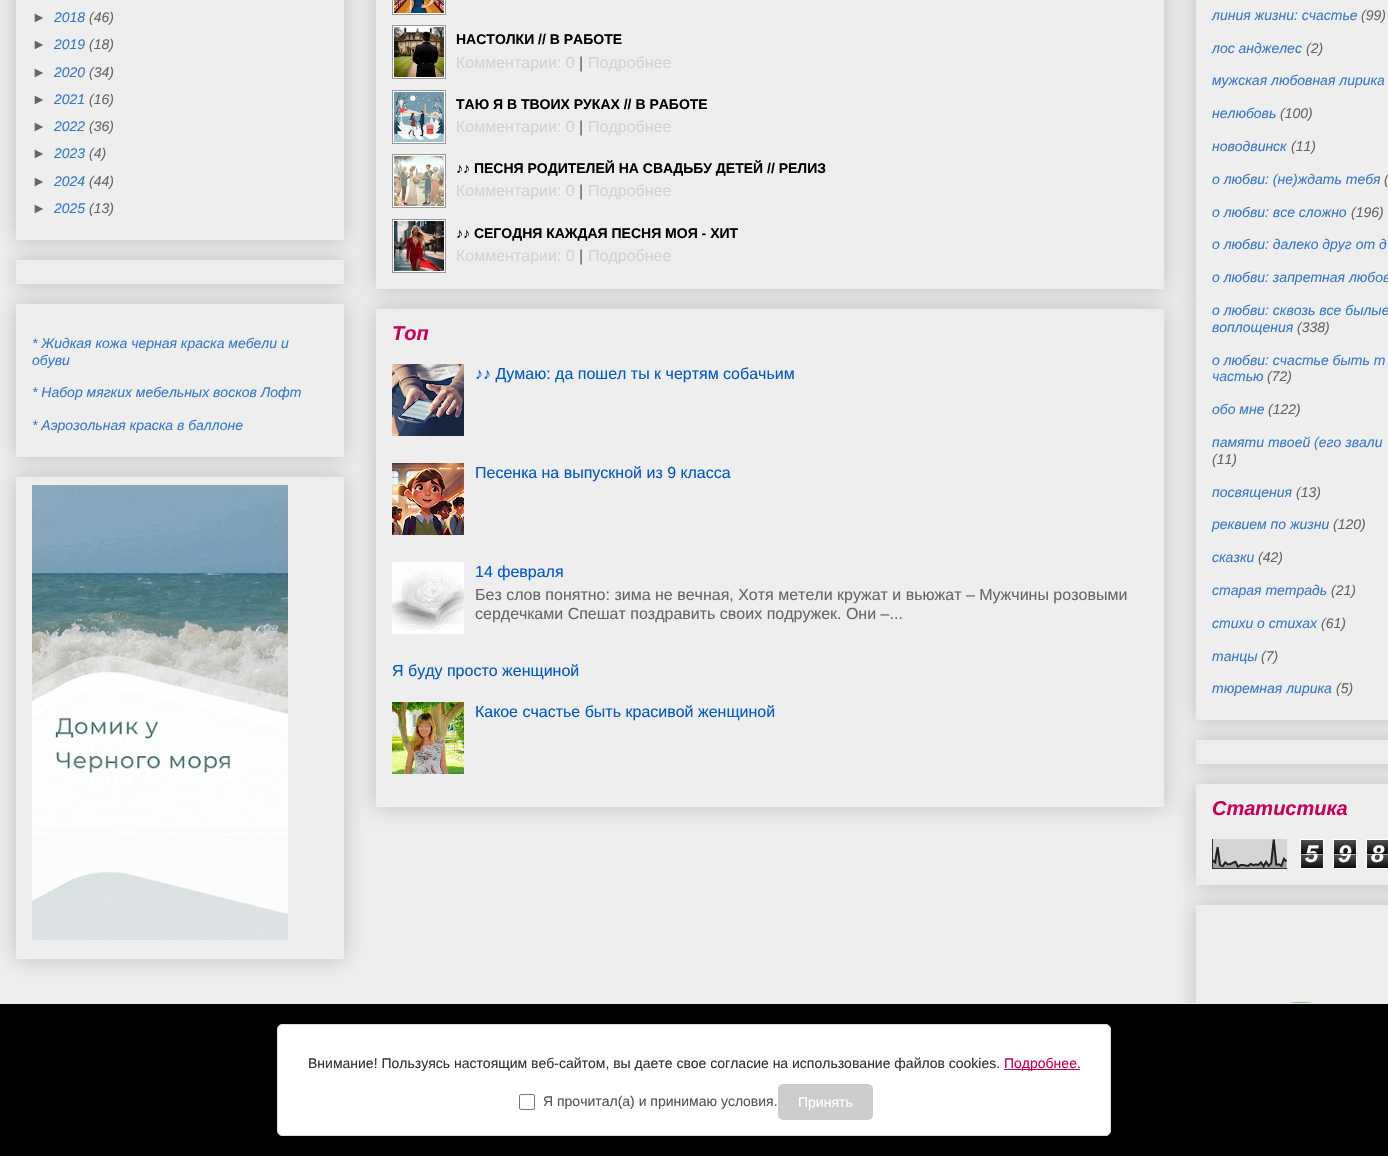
#include "include/core/SkBlurTypes.h"
#include "include/core/SkCanvas.h"
#include "include/core/SkData.h"
#include "include/core/SkFont.h"
#include "include/core/SkFontMgr.h"
#include "include/core/SkImage.h"
#include "include/core/SkMaskFilter.h"
#include "include/core/SkPaint.h"
#include "include/core/SkPathBuilder.h"
#include "include/core/SkTextBlob.h"
#include "include/effects/SkDashPathEffect.h"
#include "include/effects/SkGradientShader.h"
#include "include/utils/SkParsePath.h"

extern sk_sp<SkFontMgr> fontMgr;

static SkFont font(const char* family, int weight, float size, bool italic = false) {
    SkFontStyle style(weight, SkFontStyle::kNormal_Width,
        italic ? SkFontStyle::kItalic_Slant : SkFontStyle::kUpright_Slant);
    SkFont result(fontMgr->matchFamilyStyle(family, style), size);
    result.setSubpixel(true);
    return result;
}

static void drawLabel(SkCanvas* canvas, const char* s, float x, float y, const SkFont& font, SkColor color) {
    SkPaint ink(SkColor4f::FromColor(color));
    ink.setAntiAlias(true);
    canvas->drawString(s, x, y, font, ink);
}

static void fillRect(SkCanvas* canvas, float x, float y, float w, float h, SkColor color) {
    SkPaint ink(SkColor4f::FromColor(color));
    ink.setAntiAlias(true);
    canvas->drawRect(SkRect::MakeXYWH(x, y, w, h), ink);
}

static void fillRRect(SkCanvas* canvas, float x, float y, float w, float h, float radius, SkColor color) {
    SkPaint ink(SkColor4f::FromColor(color));
    ink.setAntiAlias(true);
    canvas->drawRoundRect(SkRect::MakeXYWH(x, y, w, h), radius, radius, ink);
}

static void drawPhoto(SkCanvas* canvas, const char* path, float x, float y, float w, float h) {
    auto image = SkImages::DeferredFromEncodedData(SkData::MakeFromFileName(path));
    canvas->drawImageRect(image, SkRect::MakeXYWH(x, y, w, h), SkSamplingOptions());
}

static SkPath parsePath(const char* data, bool evenOdd = false) {
    SkPath result = *SkParsePath::FromSVGString(data);
    if (evenOdd) result.setFillType(SkPathFillType::kEvenOdd);
    return result;
}

void draw(SkCanvas* canvas) {
    SkPaint paint;
    paint.setAntiAlias(true);
    canvas->clear(0xFFEEEEEE);
    canvas->save();
    canvas->clipPath(parsePath("M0 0H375V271H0ZM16-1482H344V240H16Z", true), true);
    paint.setColor(0x33000000);
    paint.setMaskFilter(SkMaskFilter::MakeBlur(kNormal_SkBlurStyle, 10));
    canvas->drawRect(SkRect::MakeXYWH(16, -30, 328, 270), paint);
    paint.setMaskFilter(nullptr);
    canvas->restore();
    SkFont font1 = font("Liberation Sans", 400, 14, true);
    drawLabel(canvas, "►", 32, 22, font1, 0xFF666666);
    drawLabel(canvas, "2018", 54, 22, font1, 0xFF3778CD);
    drawLabel(canvas, "(46)", 89, 22, font1, 0xFF666666);
    drawLabel(canvas, "►", 32, 49, font1, 0xFF666666);
    drawLabel(canvas, "2019", 54, 49, font1, 0xFF3778CD);
    drawLabel(canvas, "(18)", 89, 49, font1, 0xFF666666);
    drawLabel(canvas, "►", 32, 77, font1, 0xFF666666);
    drawLabel(canvas, "2020", 54, 77, font1, 0xFF3778CD);
    drawLabel(canvas, "(34)", 89, 77, font1, 0xFF666666);
    drawLabel(canvas, "►", 32, 104, font1, 0xFF666666);
    drawLabel(canvas, "2021", 54, 104, font1, 0xFF3778CD);
    drawLabel(canvas, "(16)", 89, 104, font1, 0xFF666666);
    drawLabel(canvas, "►", 32, 131, font1, 0xFF666666);
    drawLabel(canvas, "2022", 54, 131, font1, 0xFF3778CD);
    drawLabel(canvas, "(36)", 89, 131, font1, 0xFF666666);
    drawLabel(canvas, "►", 32, 158, font1, 0xFF666666);
    drawLabel(canvas, "2023", 54, 158, font1, 0xFF3778CD);
    drawLabel(canvas, "(4)", 89, 158, font1, 0xFF666666);
    drawLabel(canvas, "►", 32, 186, font1, 0xFF666666);
    drawLabel(canvas, "2024", 54, 186, font1, 0xFF3778CD);
    drawLabel(canvas, "(44)", 89, 186, font1, 0xFF666666);
    drawLabel(canvas, "►", 32, 213, font1, 0xFF666666);
    drawLabel(canvas, "2025", 54, 213, font1, 0xFF3778CD);
    drawLabel(canvas, "(13)", 89, 213, font1, 0xFF666666);
    canvas->save();
    canvas->clipPath(parsePath("M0 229H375V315H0ZM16 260H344V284H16Z", true), true);
    paint.setMaskFilter(SkMaskFilter::MakeBlur(kNormal_SkBlurStyle, 10));
    canvas->drawRect(SkRect::MakeXYWH(16, 260, 328, 24), paint);
    paint.setMaskFilter(nullptr);
    canvas->restore();
    canvas->save();
    canvas->clipPath(parsePath("M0 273H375V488H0ZM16 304H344V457H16Z", true), true);
    paint.setMaskFilter(SkMaskFilter::MakeBlur(kNormal_SkBlurStyle, 10));
    canvas->drawRect(SkRect::MakeXYWH(16, 304, 328, 153), paint);
    paint.setMaskFilter(nullptr);
    canvas->restore();
    drawLabel(canvas, "* Жидкая кожа черная краска мебели и", 32, 348, font1, 0xFF3778CD);
    drawLabel(canvas, "обуви", 32, 365, font1, 0xFF3778CD);
    drawLabel(canvas, "* Набор мягких мебельных восков Лофт", 32, 397, font1, 0xFF3778CD);
    drawLabel(canvas, "* Аэрозольная краска в баллоне", 32, 430, font1, 0xFF3778CD);
    canvas->save();
    canvas->clipPath(parsePath("M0 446H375V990H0ZM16 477H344V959H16Z", true), true);
    paint.setMaskFilter(SkMaskFilter::MakeBlur(kNormal_SkBlurStyle, 10));
    canvas->drawRect(SkRect::MakeXYWH(16, 477, 328, 482), paint);
    paint.setMaskFilter(nullptr);
    canvas->restore();
    drawPhoto(canvas, "assets/img1.png", 32, 485, 256, 455);
    canvas->save();
    canvas->clipPath(parsePath("M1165 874H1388V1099H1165ZM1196 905H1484V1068H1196Z", true), true);
    paint.setMaskFilter(SkMaskFilter::MakeBlur(kNormal_SkBlurStyle, 10));
    canvas->drawRect(SkRect::MakeXYWH(1196, 905, 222, 163), paint);
    paint.setMaskFilter(nullptr);
    canvas->restore();
    paint.setStroke(true);
    paint.setStrokeWidth(2);
    paint.setColor(0x8000A100);
    canvas->drawCircle(1301, 1079, 76, paint);
    canvas->save();
    canvas->clipPath(parsePath("M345 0H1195V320H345ZM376-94H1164V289H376Z", true), true);
    paint.setStroke(false);
    paint.setColor(0x33000000);
    paint.setMaskFilter(SkMaskFilter::MakeBlur(kNormal_SkBlurStyle, 10));
    canvas->drawRect(SkRect::MakeXYWH(376, -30, 788, 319), paint);
    paint.setMaskFilter(nullptr);
    canvas->restore();
    paint.setColor(0xFFFFFFFF);
    canvas->drawRect(SkRect::MakeXYWH(392.5f, -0.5f, 53, 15), paint);
    paint.setStroke(true);
    paint.setStrokeWidth(1);
    paint.setColor(0xFF999999);
    canvas->drawRect(SkRect::MakeXYWH(392.5f, -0.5f, 53, 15), paint);
    drawPhoto(canvas, "assets/img2.png", 394, 0, 50, 13);
    paint.setStroke(false);
    paint.setColor(0xFFFFFFFF);
    canvas->drawRect(SkRect::MakeXYWH(392.5f, 25.5f, 53, 53), paint);
    paint.setStroke(true);
    paint.setColor(0xFF999999);
    canvas->drawRect(SkRect::MakeXYWH(392.5f, 25.5f, 53, 53), paint);
    drawPhoto(canvas, "assets/img3.png", 394, 27, 50, 50);
    SkFont font2 = font("Liberation Sans", 700, 14);
    drawLabel(canvas, "НАСТОЛКИ // В РАБОТЕ", 456, 44, font2, 0xFF000000);
    SkFont font3 = font("Liberation Sans", 400, 16);
    drawLabel(canvas, "Комментарии: 0", 456, 68, font3, 0xFFD3D3D3);
    drawLabel(canvas, "|", 579, 68, font3, 0xFF666666);
    drawLabel(canvas, "Подробнее", 588, 68, font3, 0xFFD3D3D3);
    paint.setStroke(false);
    paint.setColor(0xFFFFFFFF);
    canvas->drawRect(SkRect::MakeXYWH(392.5f, 90.5f, 53, 53), paint);
    paint.setStroke(true);
    paint.setColor(0xFF999999);
    canvas->drawRect(SkRect::MakeXYWH(392.5f, 90.5f, 53, 53), paint);
    drawPhoto(canvas, "assets/img4.png", 394, 92, 50, 50);
    drawLabel(canvas, "ТАЮ Я В ТВОИХ РУКАХ // В РАБОТЕ", 456, 109, font2, 0xFF000000);
    drawLabel(canvas, "Комментарии: 0", 456, 132, font3, 0xFFD3D3D3);
    drawLabel(canvas, "|", 579, 132, font3, 0xFF666666);
    drawLabel(canvas, "Подробнее", 588, 132, font3, 0xFFD3D3D3);
    paint.setStroke(false);
    paint.setColor(0xFFFFFFFF);
    canvas->drawRect(SkRect::MakeXYWH(392.5f, 154.5f, 53, 53), paint);
    paint.setStroke(true);
    paint.setColor(0xFF999999);
    canvas->drawRect(SkRect::MakeXYWH(392.5f, 154.5f, 53, 53), paint);
    drawPhoto(canvas, "assets/img5.png", 394, 156, 50, 50);
    drawLabel(canvas, "♪♪ ПЕСНЯ РОДИТЕЛЕЙ НА СВАДЬБУ ДЕТЕЙ // РЕЛИЗ", 456, 173, font2, 0xFF000000);
    drawLabel(canvas, "Комментарии: 0", 456, 196, font3, 0xFFD3D3D3);
    drawLabel(canvas, "|", 579, 196, font3, 0xFF666666);
    drawLabel(canvas, "Подробнее", 588, 196, font3, 0xFFD3D3D3);
    paint.setStroke(false);
    paint.setColor(0xFFFFFFFF);
    canvas->drawRect(SkRect::MakeXYWH(392.5f, 219.5f, 53, 53), paint);
    paint.setStroke(true);
    paint.setColor(0xFF999999);
    canvas->drawRect(SkRect::MakeXYWH(392.5f, 219.5f, 53, 53), paint);
    drawPhoto(canvas, "assets/img6.png", 394, 221, 50, 50);
    drawLabel(canvas, "♪♪ СЕГОДНЯ КАЖДАЯ ПЕСНЯ МОЯ - ХИТ", 456, 238, font2, 0xFF000000);
    drawLabel(canvas, "Комментарии: 0", 456, 261, font3, 0xFFD3D3D3);
    drawLabel(canvas, "|", 579, 261, font3, 0xFF666666);
    drawLabel(canvas, "Подробнее", 588, 261, font3, 0xFFD3D3D3);
    canvas->save();
    canvas->clipPath(parsePath("M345 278H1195V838H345ZM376 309H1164V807H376Z", true), true);
    paint.setStroke(false);
    paint.setColor(0x33000000);
    paint.setMaskFilter(SkMaskFilter::MakeBlur(kNormal_SkBlurStyle, 10));
    canvas->drawRect(SkRect::MakeXYWH(376, 309, 788, 498), paint);
    paint.setMaskFilter(nullptr);
    canvas->restore();
    SkFont font4 = font("Liberation Sans", 700, 20, true);
    drawLabel(canvas, "Топ", 392, 340, font4, 0xFFCD0057);
    drawPhoto(canvas, "assets/img7.png", 392, 364, 72, 72);
    drawLabel(canvas, "♪♪ Думаю: да пошел ты к чертям собачьим", 475, 379, font3, 0xFF0058CD);
    drawPhoto(canvas, "assets/img8.png", 392, 463, 72, 72);
    drawLabel(canvas, "Песенка на выпускной из 9 класса", 475, 478, font3, 0xFF0058CD);
    drawPhoto(canvas, "assets/img9.png", 392, 562, 72, 72);
    drawLabel(canvas, "14 февраля", 475, 577, font3, 0xFF0058CD);
    drawLabel(canvas, "Без слов понятно: зима не вечная, Хотя метели кружат и вьюжат – Мужчины розовыми", 475, 600, font3, 0xFF666666);
    drawLabel(canvas, "сердечками Спешат поздравить своих подружек. Они –...", 475, 619, font3, 0xFF666666);
    drawLabel(canvas, "Я буду просто женщиной", 392, 676, font3, 0xFF0058CD);
    drawPhoto(canvas, "assets/img10.png", 392, 702, 72, 72);
    drawLabel(canvas, "Какое счастье быть красивой женщиной", 475, 717, font3, 0xFF0058CD);
    canvas->save();
    canvas->clipPath(parsePath("M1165 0H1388V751H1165ZM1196-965H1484V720H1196Z", true), true);
    paint.setMaskFilter(SkMaskFilter::MakeBlur(kNormal_SkBlurStyle, 10));
    canvas->drawRect(SkRect::MakeXYWH(1196, -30, 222, 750), paint);
    paint.setMaskFilter(nullptr);
    canvas->restore();
    drawLabel(canvas, "линия жизни: счастье", 1212, 20, font1, 0xFF3778CD);
    drawLabel(canvas, "(99)", 1361, 20, font1, 0xFF666666);
    drawLabel(canvas, "лос анджелес", 1212, 53, font1, 0xFF3778CD);
    drawLabel(canvas, "(2)", 1306, 53, font1, 0xFF666666);
    drawLabel(canvas, "мужская любовная лирика", 1212, 85, font1, 0xFF3778CD);
    drawLabel(canvas, "нелюбовь", 1212, 118, font1, 0xFF3778CD);
    drawLabel(canvas, "(100)", 1280, 118, font1, 0xFF666666);
    drawLabel(canvas, "новодвинск", 1212, 151, font1, 0xFF3778CD);
    drawLabel(canvas, "(11)", 1291, 151, font1, 0xFF666666);
    drawLabel(canvas, "о любви: (не)ждать тебя", 1212, 184, font1, 0xFF3778CD);
    drawLabel(canvas, "(", 1384, 184, font1, 0xFF666666);
    drawLabel(canvas, "о любви: все сложно", 1212, 217, font1, 0xFF3778CD);
    drawLabel(canvas, "(196)", 1351, 217, font1, 0xFF666666);
    drawLabel(canvas, "о любви: далеко друг от д", 1212, 249, font1, 0xFF3778CD);
    drawLabel(canvas, "о любви: запретная любов", 1212, 282, font1, 0xFF3778CD);
    drawLabel(canvas, "о любви: сквозь все былые", 1212, 315, font1, 0xFF3778CD);
    drawLabel(canvas, "воплощения", 1212, 332, font1, 0xFF3778CD);
    drawLabel(canvas, "(338)", 1297, 332, font1, 0xFF666666);
    drawLabel(canvas, "о любви: счастье быть т", 1212, 365, font1, 0xFF3778CD);
    drawLabel(canvas, "частью", 1212, 381, font1, 0xFF3778CD);
    drawLabel(canvas, "(72)", 1267, 381, font1, 0xFF666666);
    drawLabel(canvas, "обо мне", 1212, 414, font1, 0xFF3778CD);
    drawLabel(canvas, "(122)", 1268, 414, font1, 0xFF666666);
    drawLabel(canvas, "памяти твоей (его звали", 1212, 447, font1, 0xFF3778CD);
    drawLabel(canvas, "(11)", 1212, 464, font1, 0xFF666666);
    drawLabel(canvas, "посвящения", 1212, 497, font1, 0xFF3778CD);
    drawLabel(canvas, "(13)", 1296, 497, font1, 0xFF666666);
    drawLabel(canvas, "реквием по жизни", 1212, 529, font1, 0xFF3778CD);
    drawLabel(canvas, "(120)", 1333, 529, font1, 0xFF666666);
    drawLabel(canvas, "сказки", 1212, 562, font1, 0xFF3778CD);
    drawLabel(canvas, "(42)", 1258, 562, font1, 0xFF666666);
    drawLabel(canvas, "старая тетрадь", 1212, 595, font1, 0xFF3778CD);
    drawLabel(canvas, "(21)", 1331, 595, font1, 0xFF666666);
    drawLabel(canvas, "стихи о стихах", 1212, 628, font1, 0xFF3778CD);
    drawLabel(canvas, "(61)", 1321, 628, font1, 0xFF666666);
    drawLabel(canvas, "танцы", 1212, 661, font1, 0xFF3778CD);
    drawLabel(canvas, "(7)", 1261, 661, font1, 0xFF666666);
    drawLabel(canvas, "тюремная лирика", 1212, 693, font1, 0xFF3778CD);
    drawLabel(canvas, "(5)", 1336, 693, font1, 0xFF666666);
    canvas->save();
    canvas->clipPath(parsePath("M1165 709H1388V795H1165ZM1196 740H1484V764H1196Z", true), true);
    paint.setMaskFilter(SkMaskFilter::MakeBlur(kNormal_SkBlurStyle, 10));
    canvas->drawRect(SkRect::MakeXYWH(1196, 740, 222, 24), paint);
    paint.setMaskFilter(nullptr);
    canvas->restore();
    canvas->save();
    canvas->clipPath(parsePath("M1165 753H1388V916H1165ZM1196 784H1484V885H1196Z", true), true);
    paint.setMaskFilter(SkMaskFilter::MakeBlur(kNormal_SkBlurStyle, 10));
    canvas->drawRect(SkRect::MakeXYWH(1196, 784, 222, 101), paint);
    paint.setMaskFilter(nullptr);
    canvas->restore();
    drawLabel(canvas, "Статистика", 1212, 815, font4, 0xFFCD0057);
    drawPhoto(canvas, "assets/img11.png", 1212, 839, 75, 30);
    drawPhoto(canvas, "assets/img12.png", 1301, 840, 22, 28);
    paint.setStroke(true);
    paint.setColor(0xFFFFFFFF);
    canvas->drawRect(SkRect::MakeXYWH(1300.5f, 839.5f, 23, 29), paint);
    SkFont font5 = font("Liberation Sans", 700, 24, true);
    drawLabel(canvas, "5", 1305, 862, font5, 0xFFFFFFFF);
    fillRect(canvas, 1301, 853, 22, 1, 0xA6000000);
    fillRect(canvas, 1301, 854, 22, 1, 0xA6FFFFFF);
    drawPhoto(canvas, "assets/img12.png", 1334, 840, 22, 28);
    canvas->drawRect(SkRect::MakeXYWH(1333.5f, 839.5f, 23, 29), paint);
    drawLabel(canvas, "9", 1338, 862, font5, 0xFFFFFFFF);
    fillRect(canvas, 1334, 853, 22, 1, 0xA6000000);
    fillRect(canvas, 1334, 854, 22, 1, 0xA6FFFFFF);
    drawPhoto(canvas, "assets/img13.png", 1367, 840, 21, 28);
    canvas->drawRect(SkRect::MakeXYWH(1366.5f, 839.5f, 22, 29), paint);
    drawLabel(canvas, "8", 1371, 862, font5, 0xFFFFFFFF);
    fillRect(canvas, 1367, 853, 21, 1, 0xA6000000);
    fillRect(canvas, 1367, 854, 21, 1, 0xA6FFFFFF);
    fillRect(canvas, 0, 1004, 1388, 152, 0xFF000000);
    fillRect(canvas, 1180, 1003, 138, 1, 0xFFEEEEEE);
    paint.setStroke(false);
    canvas->drawRoundRect(SkRect::MakeXYWH(277.5f, 1024.5f, 833, 111), 4.5f, 4.5f, paint);
    paint.setStroke(true);
    paint.setColor(0xFFDDDDDD);
    canvas->drawRoundRect(SkRect::MakeXYWH(277.5f, 1024.5f, 833, 111), 4.5f, 4.5f, paint);
    SkFont font6 = font("Liberation Sans", 400, 14);
    drawLabel(canvas, "Внимание! Пользуясь настоящим веб-сайтом, вы даете свое согласие на использование файлов cookies.", 308, 1068, font6, 0xFF333333);
    fillRect(canvas, 1004, 1069, 76, 1, 0xFFCD0057);
    drawLabel(canvas, "Подробнее.", 1004, 1068, font6, 0xFFCD0057);
    paint.setColor(0xFF767676);
    canvas->drawRoundRect(SkRect::MakeXYWH(519.5f, 1094.5f, 15, 15), 1.5f, 1.5f, paint);
    drawLabel(canvas, "Я прочитал(а) и принимаю условия.", 543, 1106, font6, 0xFF555555);
    fillRRect(canvas, 778, 1084, 95, 36, 5, 0xFFCCCCCC);
    drawLabel(canvas, "Принять", 798, 1107, font6, 0xFFFFFFFF);
}
